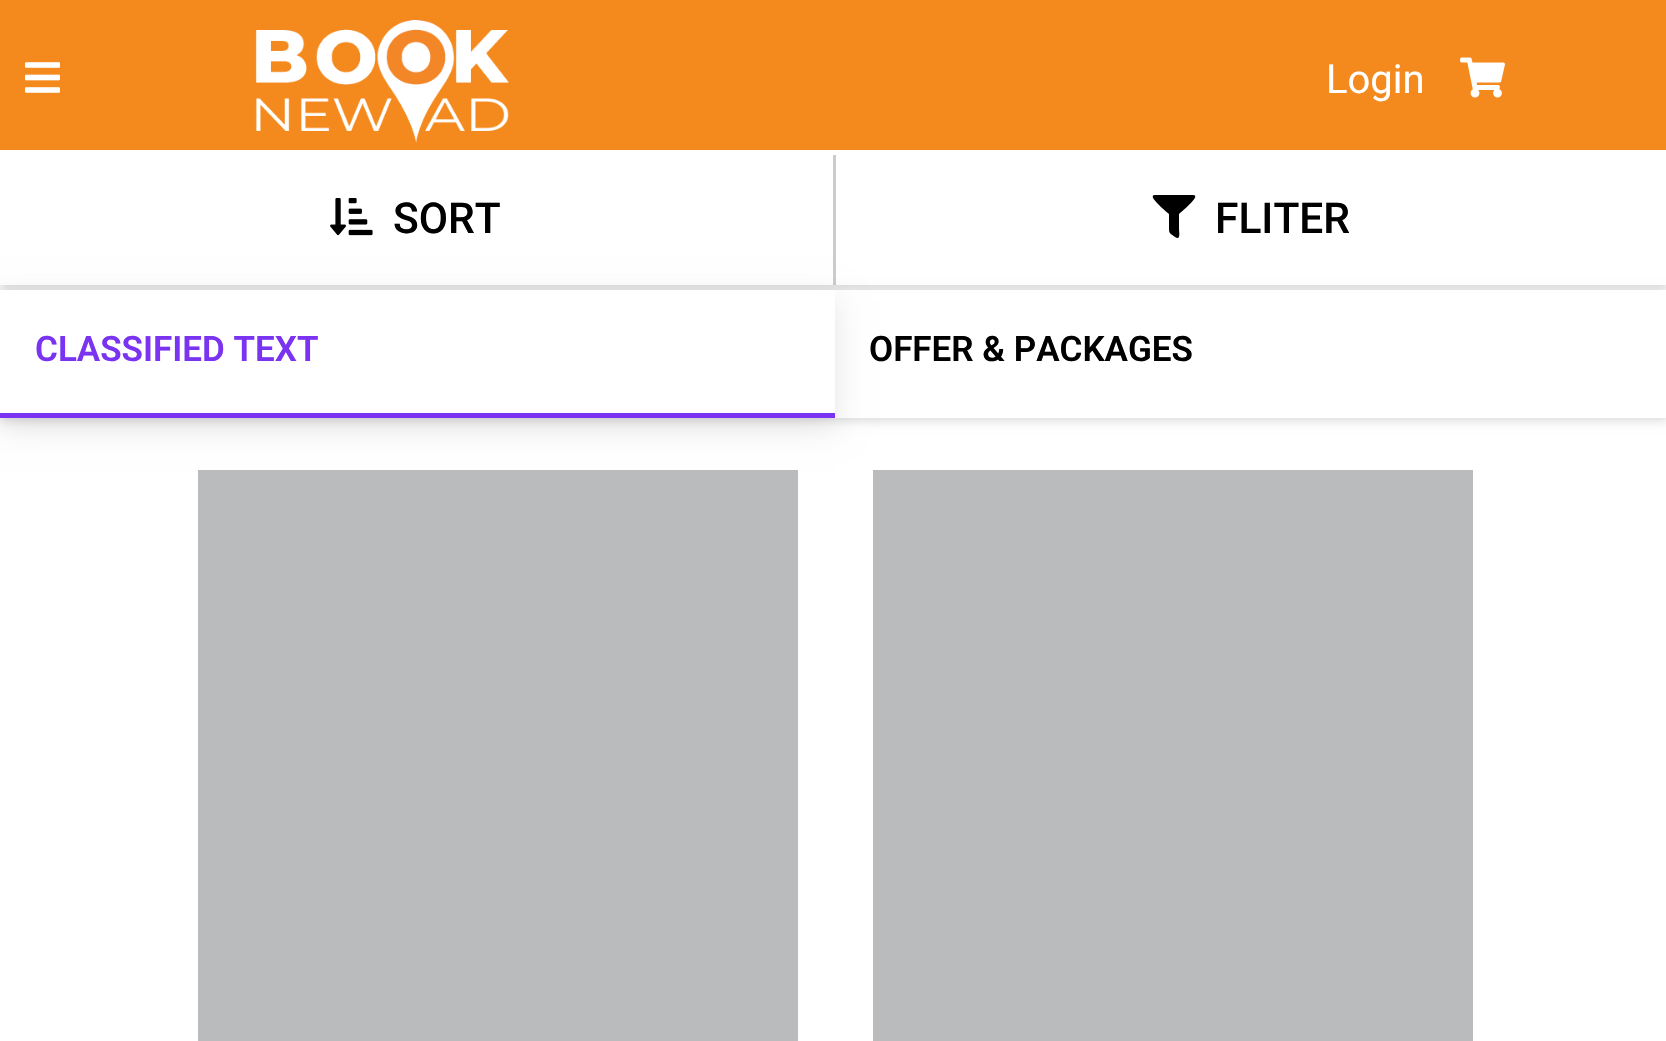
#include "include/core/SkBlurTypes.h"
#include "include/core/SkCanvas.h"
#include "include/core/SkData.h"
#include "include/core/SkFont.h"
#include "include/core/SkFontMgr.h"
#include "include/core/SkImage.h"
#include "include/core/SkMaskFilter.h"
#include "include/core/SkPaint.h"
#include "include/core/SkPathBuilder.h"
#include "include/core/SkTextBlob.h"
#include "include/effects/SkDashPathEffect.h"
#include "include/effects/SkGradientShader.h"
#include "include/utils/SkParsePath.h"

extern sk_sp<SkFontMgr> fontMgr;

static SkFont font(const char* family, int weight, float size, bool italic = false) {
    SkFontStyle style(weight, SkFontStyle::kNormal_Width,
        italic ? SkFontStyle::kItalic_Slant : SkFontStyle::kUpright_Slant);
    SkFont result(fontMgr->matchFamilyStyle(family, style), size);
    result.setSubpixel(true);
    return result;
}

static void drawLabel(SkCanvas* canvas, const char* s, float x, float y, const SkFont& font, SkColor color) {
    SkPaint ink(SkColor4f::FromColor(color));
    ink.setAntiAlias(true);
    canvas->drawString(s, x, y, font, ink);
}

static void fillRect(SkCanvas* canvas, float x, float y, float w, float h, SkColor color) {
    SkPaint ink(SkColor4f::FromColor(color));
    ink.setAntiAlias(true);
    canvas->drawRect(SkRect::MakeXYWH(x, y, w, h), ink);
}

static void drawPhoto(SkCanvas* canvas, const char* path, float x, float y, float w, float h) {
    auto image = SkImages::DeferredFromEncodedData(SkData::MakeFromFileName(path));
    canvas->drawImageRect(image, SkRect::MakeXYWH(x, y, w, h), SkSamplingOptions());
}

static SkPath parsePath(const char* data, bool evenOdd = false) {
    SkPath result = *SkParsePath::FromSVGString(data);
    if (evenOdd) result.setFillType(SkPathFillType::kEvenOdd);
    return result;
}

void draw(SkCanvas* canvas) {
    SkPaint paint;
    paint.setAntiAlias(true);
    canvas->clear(0xFFFFFFFF);
    canvas->save();
    canvas->clipRect(SkRect::MakeXYWH(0, 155, 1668, 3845));
    canvas->clipRect(SkRect::MakeXYWH(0, 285, 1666, 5));
    paint.setColor(0x29000000);
    paint.setMaskFilter(SkMaskFilter::MakeBlur(kNormal_SkBlurStyle, 5));
    canvas->drawRect(SkRect::MakeXYWH(0, 158, 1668, 130), paint);
    paint.setMaskFilter(nullptr);
    canvas->restore();
    fillRect(canvas, 0, 0, 1666, 150, 0xFFF4891D);
    drawPhoto(canvas, "assets/img1.png", 25, 62, 35, 31);
    drawPhoto(canvas, "assets/img2.png", 255, 20, 254, 123);
    SkFont font1 = font("Roboto", 400, 40);
    drawLabel(canvas, "Login", 1326, 93, font1, 0xFFFFFFFF);
    drawPhoto(canvas, "assets/img3.png", 1460, 57, 45, 41);
    fillRect(canvas, 833, 155, 3, 130, 0xFFCCCCCC);
    drawPhoto(canvas, "assets/img4.png", 330, 198, 43, 38);
    SkFont font2 = font("Roboto", 500, 42.5f);
    drawLabel(canvas, "SORT", 393, 233, font2, 0xFF000000);
    paint.setColor(0xFF000000);
    canvas->drawPath(parsePath("M1193 195C1201 195 1186 208 1179 214V229C1179 232 1181 241 1175 237C1170 233 1169 234 1169 228V214C1162 208 1147 195 1155 195Z"), paint);
    drawLabel(canvas, "FLITER", 1215, 233, font2, 0xFF000000);
    paint.setColor(0x29000000);
    paint.setMaskFilter(SkMaskFilter::MakeBlur(kNormal_SkBlurStyle, 5));
    canvas->drawRect(SkRect::MakeXYWH(0, 293, 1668, 127), paint);
    paint.setMaskFilter(nullptr);
    fillRect(canvas, 835, 290, 831, 128, 0xFFFFFFFF);
    paint.setColor(0x1A000000);
    paint.setMaskFilter(SkMaskFilter::MakeBlur(kNormal_SkBlurStyle, 15));
    canvas->drawRect(SkRect::MakeXYWH(0, 300, 835, 128), paint);
    paint.setMaskFilter(nullptr);
    fillRect(canvas, 0, 290, 835, 123, 0xFFFFFFFF);
    fillRect(canvas, 0, 413, 835, 5, 0xFF7A33F1);
    SkFont font3 = font("Roboto", 600, 35);
    drawLabel(canvas, "CLASSIFIED TEXT", 35, 361, font3, 0xFF7A33F1);
    drawLabel(canvas, "OFFER & PACKAGES", 869, 361, font3, 0xFF000000);
    fillRect(canvas, 198, 470, 600, 571, 0xFFBABBBC);
    fillRect(canvas, 873, 470, 600, 571, 0xFFBABBBC);
}
